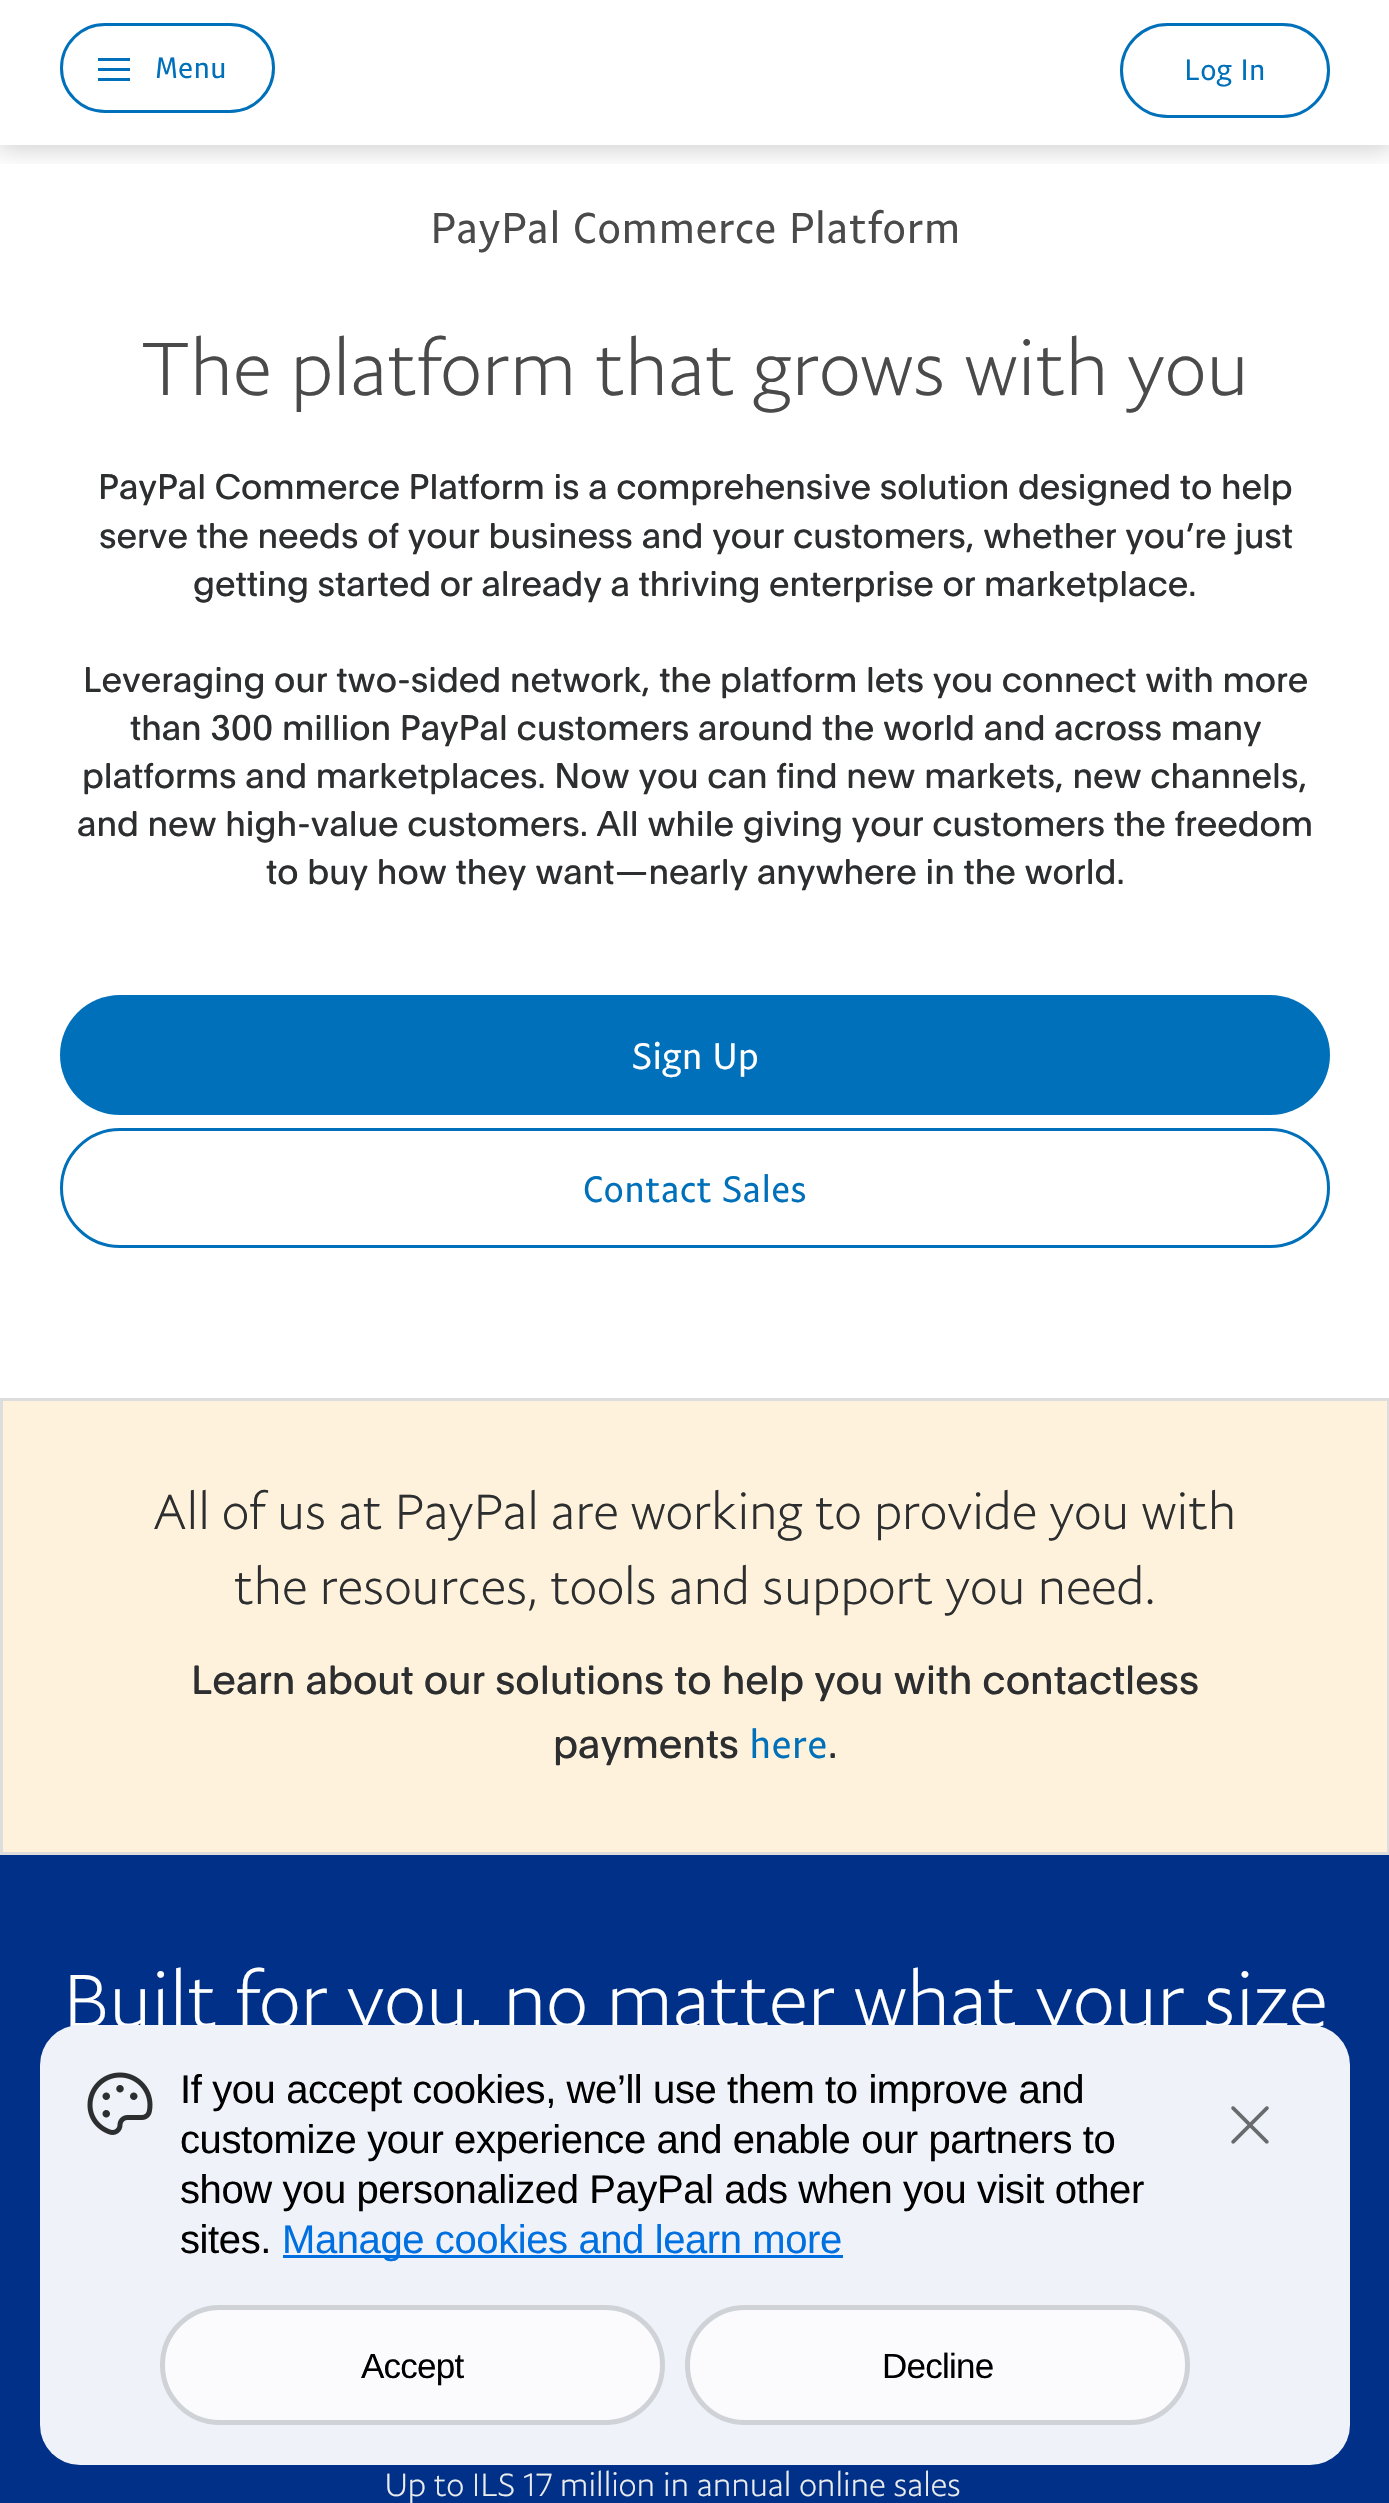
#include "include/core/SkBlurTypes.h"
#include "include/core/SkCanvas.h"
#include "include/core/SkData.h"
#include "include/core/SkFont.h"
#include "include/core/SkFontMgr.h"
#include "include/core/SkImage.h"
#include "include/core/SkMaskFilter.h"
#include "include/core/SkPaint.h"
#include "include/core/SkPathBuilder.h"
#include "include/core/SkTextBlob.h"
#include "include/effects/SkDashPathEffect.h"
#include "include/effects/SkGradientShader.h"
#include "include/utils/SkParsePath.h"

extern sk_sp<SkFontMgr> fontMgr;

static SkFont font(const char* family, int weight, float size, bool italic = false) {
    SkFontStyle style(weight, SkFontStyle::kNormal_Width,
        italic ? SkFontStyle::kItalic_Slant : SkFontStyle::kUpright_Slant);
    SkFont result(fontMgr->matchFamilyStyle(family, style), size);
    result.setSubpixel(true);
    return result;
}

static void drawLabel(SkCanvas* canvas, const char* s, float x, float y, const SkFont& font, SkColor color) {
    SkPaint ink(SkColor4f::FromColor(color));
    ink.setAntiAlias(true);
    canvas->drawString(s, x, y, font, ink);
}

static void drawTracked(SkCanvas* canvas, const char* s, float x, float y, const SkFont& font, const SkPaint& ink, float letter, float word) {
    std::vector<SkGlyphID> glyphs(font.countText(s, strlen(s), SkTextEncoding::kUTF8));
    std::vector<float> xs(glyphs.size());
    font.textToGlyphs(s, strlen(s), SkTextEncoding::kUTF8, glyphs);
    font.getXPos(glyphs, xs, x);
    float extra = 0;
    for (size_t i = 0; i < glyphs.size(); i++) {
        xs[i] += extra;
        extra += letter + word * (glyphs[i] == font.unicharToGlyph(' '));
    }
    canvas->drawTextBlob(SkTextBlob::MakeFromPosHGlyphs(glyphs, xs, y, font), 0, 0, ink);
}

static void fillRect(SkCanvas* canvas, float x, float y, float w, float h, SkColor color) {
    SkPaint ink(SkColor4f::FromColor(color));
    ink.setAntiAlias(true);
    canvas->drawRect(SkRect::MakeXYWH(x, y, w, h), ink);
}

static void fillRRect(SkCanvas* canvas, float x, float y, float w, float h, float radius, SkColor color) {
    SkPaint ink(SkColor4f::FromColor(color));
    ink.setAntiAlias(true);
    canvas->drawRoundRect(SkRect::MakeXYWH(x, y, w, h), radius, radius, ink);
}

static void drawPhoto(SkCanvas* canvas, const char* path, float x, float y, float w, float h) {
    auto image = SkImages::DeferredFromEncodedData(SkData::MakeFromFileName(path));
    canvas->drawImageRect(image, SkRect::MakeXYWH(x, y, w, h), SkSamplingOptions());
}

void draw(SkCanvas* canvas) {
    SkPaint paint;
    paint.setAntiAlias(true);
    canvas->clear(0xFFFFFFFF);
    canvas->save();
    canvas->clipRect(SkRect::MakeXYWH(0, 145, 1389, 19));
    paint.setColor(0x33000000);
    paint.setMaskFilter(SkMaskFilter::MakeBlur(kNormal_SkBlurStyle, 12.5f));
    canvas->drawRect(SkRect::MakeXYWH(-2, -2, 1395, 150), paint);
    paint.setMaskFilter(nullptr);
    canvas->restore();
    paint.setStroke(true);
    paint.setStrokeWidth(3);
    paint.setColor(0xFF0070BA);
    canvas->drawRoundRect(SkRect::MakeXYWH(61.5f, 24.5f, 212, 87), 43.5f, 43.5f, paint);
    fillRect(canvas, 98, 58, 32, 3, 0xFF0070BA);
    fillRect(canvas, 98, 78, 32, 3, 0xFF0070BA);
    SkFont font1 = font("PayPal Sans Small", 400, 30);
    drawLabel(canvas, "Menu", 155, 78, font1, 0xFF0070BA);
    fillRect(canvas, 98, 68, 32, 3, 0xFF0070BA);
    canvas->drawRoundRect(SkRect::MakeXYWH(1121.5f, 24.5f, 207, 92), 46, 46, paint);
    drawLabel(canvas, "Log In", 1184, 80, font1, 0xFF0070BA);
    SkFont font2 = font("PayPal Sans Small", 400, 44);
    drawLabel(canvas, "PayPal Commerce Platform", 430, 243, font2, 0xFF4A4A4A);
    SkFont font3 = font("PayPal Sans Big", 300, 76);
    drawLabel(canvas, "The platform that grows with you", 141, 395, font3, 0xFF4A4A4A);
    SkFont font4 = font("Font", 400, 34.8f);
    paint.setStroke(false);
    paint.setColor(0xFF2C2E2F);
    drawTracked(canvas, "PayPal Commerce Platform is a comprehensive solution designed to help", 98, 499, font4, paint, 0, -0.1f);
    drawLabel(canvas, "serve the needs of your business and your customers, whether you’re just", 99, 548, font4, 0xFF2C2E2F);
    drawTracked(canvas, "getting started or already a thriving enterprise or marketplace.", 193, 596, font4, paint, 0, -0.1f);
    drawLabel(canvas, "Leveraging our two-sided network, the platform lets you connect with more", 83, 692, font4, 0xFF2C2E2F);
    drawLabel(canvas, "than 300 million PayPal customers around the world and across many", 130, 740, font4, 0xFF2C2E2F);
    drawTracked(canvas, "platforms and marketplaces. Now you can find new markets, new channels,", 82, 788, font4, paint, 0, -0.1f);
    drawTracked(canvas, "and new high-value customers. All while giving your customers the freedom", 77, 836, font4, paint, 0, -0.1f);
    drawLabel(canvas, "to buy how they want—nearly anywhere in the world.", 266, 884, font4, 0xFF2C2E2F);
    fillRRect(canvas, 60, 995, 1270, 120, 60, 0xFF0070BA);
    SkFont font5 = font("PayPal Sans Small", 400, 37.5f);
    drawLabel(canvas, "Sign Up", 632, 1069, font5, 0xFFFFFFFF);
    paint.setStroke(true);
    paint.setColor(0xFF0070BA);
    canvas->drawRoundRect(SkRect::MakeXYWH(61.5f, 1129.5f, 1267, 117), 58.5f, 58.5f, paint);
    drawLabel(canvas, "Contact Sales", 583, 1202, font5, 0xFF0070BA);
    paint.setStroke(false);
    paint.setColor(0xFFFFF2DC);
    canvas->drawRect(SkRect::MakeXYWH(1.5f, 1399.5f, 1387, 454), paint);
    paint.setStroke(true);
    paint.setColor(0xFFDDDDDD);
    canvas->drawRect(SkRect::MakeXYWH(1.5f, 1399.5f, 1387, 454), paint);
    SkFont font6 = font("PayPal Sans Big", 300, 50);
    drawLabel(canvas, "All of us at PayPal are working to provide you with", 153, 1529, font6, 0xFF2C2E2F);
    drawLabel(canvas, "the resources, tools and support you need.", 234, 1604, font6, 0xFF2C2E2F);
    SkFont font7 = font("Font", 400, 40);
    drawLabel(canvas, "Learn about our solutions to help you with contactless", 191, 1694, font7, 0xFF2C2E2F);
    drawLabel(canvas, "payments", 553, 1758, font7, 0xFF2C2E2F);
    SkFont font8 = font("PayPal Sans Small", 400, 40);
    drawLabel(canvas, "here", 749, 1758, font8, 0xFF0070BA);
    drawLabel(canvas, ".", 828, 1758, font7, 0xFF2C2E2F);
    fillRect(canvas, 0, 1855, 1389, 648, 0xFF003087);
    drawLabel(canvas, "Built for you, no matter what your size", 63, 2027, font3, 0xFFFFFFFF);
    SkFont font9 = font("PayPal Sans Big", 300, 32.5f);
    drawLabel(canvas, "Up to ILS 17 million in annual online sales", 385, 2496, font9, 0xFFEAECED);
    fillRRect(canvas, 40, 2025, 1310, 440, 40, 0xFFF0F2F9);
    drawPhoto(canvas, "assets/img1.png", 87, 2072, 66, 63);
    SkFont font10 = font("Liberation Sans", 400, 40);
    paint.setStroke(false);
    paint.setColor(0xFF000000);
    drawTracked(canvas, "If you accept cookies, we’ll use them to improve and", 180, 2103, font10, paint, -0.4f, 0);
    drawTracked(canvas, "customize your experience and enable our partners to", 180, 2153, font10, paint, -0.4f, 0);
    drawTracked(canvas, "show you personalized PayPal ads when you visit other", 180, 2203, font10, paint, -0.4f, 0);
    drawTracked(canvas, "sites.", 180, 2253, font10, paint, -0.4f, 0);
    fillRect(canvas, 283, 2255, 560, 3, 0xFF0070E0);
    paint.setColor(0xFF0070E0);
    drawTracked(canvas, "Manage cookies and learn more", 282, 2253, font10, paint, -0.4f, 0);
    paint.setColor(0xFFFBFBFD);
    canvas->drawRoundRect(SkRect::MakeXYWH(162.5f, 2307.5f, 500, 115), 57.5f, 57.5f, paint);
    paint.setStroke(true);
    paint.setStrokeWidth(5);
    paint.setColor(0xFFCFD3D8);
    canvas->drawRoundRect(SkRect::MakeXYWH(162.5f, 2307.5f, 500, 115), 57.5f, 57.5f, paint);
    SkFont font11 = font("Liberation Sans", 400, 35);
    paint.setStroke(false);
    paint.setColor(0xFF000000);
    drawTracked(canvas, "Accept", 361, 2378, font11, paint, -0.75f, 0);
    paint.setColor(0xFFFBFBFD);
    canvas->drawRoundRect(SkRect::MakeXYWH(687.5f, 2307.5f, 500, 115), 57.5f, 57.5f, paint);
    paint.setStroke(true);
    paint.setColor(0xFFCFD3D8);
    canvas->drawRoundRect(SkRect::MakeXYWH(687.5f, 2307.5f, 500, 115), 57.5f, 57.5f, paint);
    paint.setStroke(false);
    paint.setColor(0xFF000000);
    drawTracked(canvas, "Decline", 882, 2378, font11, paint, -0.75f, 0);
    drawPhoto(canvas, "assets/img2.png", 1231, 2106, 38, 38);
}
